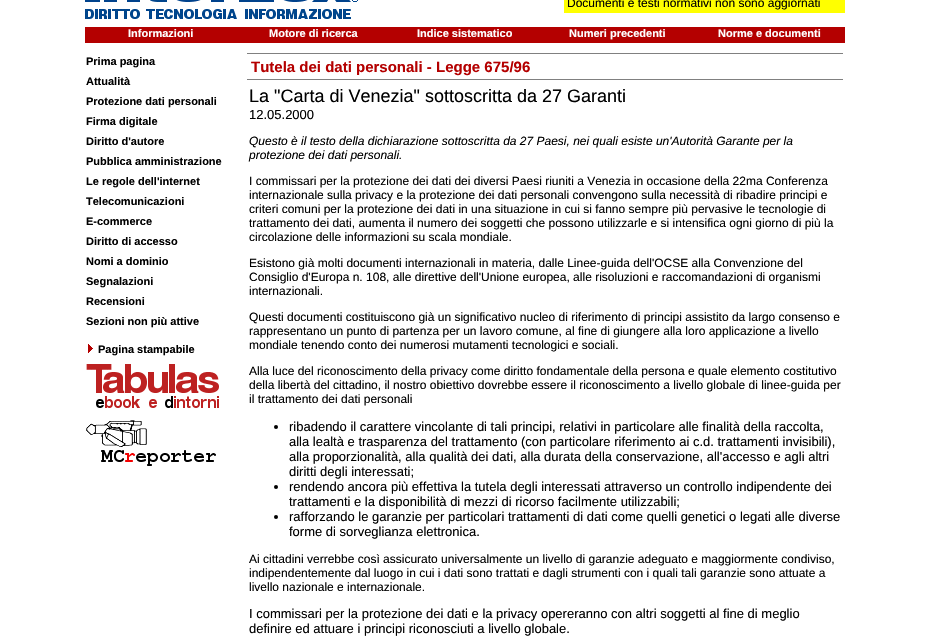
#include "include/core/SkBlurTypes.h"
#include "include/core/SkCanvas.h"
#include "include/core/SkData.h"
#include "include/core/SkFont.h"
#include "include/core/SkFontMgr.h"
#include "include/core/SkImage.h"
#include "include/core/SkMaskFilter.h"
#include "include/core/SkPaint.h"
#include "include/core/SkPathBuilder.h"
#include "include/core/SkTextBlob.h"
#include "include/effects/SkDashPathEffect.h"
#include "include/effects/SkGradientShader.h"
#include "include/utils/SkParsePath.h"

extern sk_sp<SkFontMgr> fontMgr;

static SkFont font(const char* family, int weight, float size, bool italic = false) {
    SkFontStyle style(weight, SkFontStyle::kNormal_Width,
        italic ? SkFontStyle::kItalic_Slant : SkFontStyle::kUpright_Slant);
    SkFont result(fontMgr->matchFamilyStyle(family, style), size);
    result.setSubpixel(true);
    return result;
}

static void drawLabel(SkCanvas* canvas, const char* s, float x, float y, const SkFont& font, SkColor color) {
    SkPaint ink(SkColor4f::FromColor(color));
    ink.setAntiAlias(true);
    canvas->drawString(s, x, y, font, ink);
}

static void fillRect(SkCanvas* canvas, float x, float y, float w, float h, SkColor color) {
    SkPaint ink(SkColor4f::FromColor(color));
    ink.setAntiAlias(true);
    canvas->drawRect(SkRect::MakeXYWH(x, y, w, h), ink);
}

static void drawPhoto(SkCanvas* canvas, const char* path, float x, float y, float w, float h) {
    auto image = SkImages::DeferredFromEncodedData(SkData::MakeFromFileName(path));
    canvas->drawImageRect(image, SkRect::MakeXYWH(x, y, w, h), SkSamplingOptions());
}

void draw(SkCanvas* canvas) {
    SkPaint paint;
    paint.setAntiAlias(true);
    canvas->clear(0xFFFFFFFF);
    drawPhoto(canvas, "assets/img1.png", 85, 0, 273, 19);
    fillRect(canvas, 564, 0, 281, 13, 0xFFFFFF00);
    SkFont font1 = font("Liberation Sans", 400, 12);
    drawLabel(canvas, "Documenti e testi normativi non sono aggiornati", 567, 7, font1, 0xFF000000);
    fillRect(canvas, 85, 27, 760, 16, 0xFFB40000);
    SkFont font2 = font("Liberation Sans", 700, 11);
    drawLabel(canvas, "Informazioni", 128, 37, font2, 0xFFFFFFFF);
    drawLabel(canvas, "Motore di ricerca", 269, 37, font2, 0xFFFFFFFF);
    drawLabel(canvas, "Indice sistematico", 417, 37, font2, 0xFFFFFFFF);
    drawLabel(canvas, "Numeri precedenti", 569, 37, font2, 0xFFFFFFFF);
    drawLabel(canvas, "Norme e documenti", 718, 37, font2, 0xFFFFFFFF);
    drawLabel(canvas, "Prima pagina", 86, 65, font2, 0xFF000000);
    drawLabel(canvas, "Attualità", 86, 85, font2, 0xFF000000);
    drawLabel(canvas, "Protezione dati personali", 86, 105, font2, 0xFF000000);
    drawLabel(canvas, "Firma digitale", 86, 125, font2, 0xFF000000);
    drawLabel(canvas, "Diritto d'autore", 86, 145, font2, 0xFF000000);
    drawLabel(canvas, "Pubblica amministrazione", 86, 165, font2, 0xFF000000);
    drawLabel(canvas, "Le regole dell'internet", 86, 185, font2, 0xFF000000);
    drawLabel(canvas, "Telecomunicazioni", 86, 205, font2, 0xFF000000);
    drawLabel(canvas, "E-commerce", 86, 225, font2, 0xFF000000);
    drawLabel(canvas, "Diritto di accesso", 86, 245, font2, 0xFF000000);
    drawLabel(canvas, "Nomi a dominio", 86, 265, font2, 0xFF000000);
    drawLabel(canvas, "Segnalazioni", 86, 285, font2, 0xFF000000);
    drawLabel(canvas, "Recensioni", 86, 305, font2, 0xFF000000);
    drawLabel(canvas, "Sezioni non più attive", 86, 325, font2, 0xFF000000);
    drawPhoto(canvas, "assets/img2.png", 88, 344, 5, 9);
    drawLabel(canvas, "Pagina stampabile", 98, 353, font2, 0xFF000000);
    drawPhoto(canvas, "assets/img3.png", 86, 364, 133, 44);
    drawPhoto(canvas, "assets/img4.png", 86, 420, 130, 46);
    fillRect(canvas, 247, 53, 596, 1, 0xFF808080);
    SkFont font3 = font("Liberation Sans", 700, 15);
    drawLabel(canvas, "Tutela dei dati personali - Legge 675/96", 251, 72, font3, 0xFFB40000);
    fillRect(canvas, 247, 79, 596, 1, 0xFF808080);
    SkFont font4 = font("Liberation Sans", 400, 18);
    drawLabel(canvas, "La \"Carta di Venezia\" sottoscritta da 27 Garanti", 249, 102, font4, 0xFF000000);
    SkFont font5 = font("Liberation Sans", 400, 13);
    drawLabel(canvas, "12.05.2000", 249, 119, font5, 0xFF000000);
    SkFont font6 = font("Liberation Sans", 400, 12, true);
    drawLabel(canvas, "Questo è il testo della dichiarazione sottoscritta da 27 Paesi, nei quali esiste un'Autorità Garante per la", 249, 145, font6, 0xFF000000);
    drawLabel(canvas, "protezione dei dati personali.", 249, 159, font6, 0xFF000000);
    drawLabel(canvas, "I commissari per la protezione dei dati dei diversi Paesi riuniti a Venezia in occasione della 22ma Conferenza", 249, 185, font1, 0xFF000000);
    drawLabel(canvas, "internazionale sulla privacy e la protezione dei dati personali convengono sulla necessità di ribadire principi e", 249, 199, font1, 0xFF000000);
    drawLabel(canvas, "criteri comuni per la protezione dei dati in una situazione in cui si fanno sempre più pervasive le tecnologie di", 249, 213, font1, 0xFF000000);
    drawLabel(canvas, "trattamento dei dati, aumenta il numero dei soggetti che possono utilizzarle e si intensifica ogni giorno di più la", 249, 227, font1, 0xFF000000);
    drawLabel(canvas, "circolazione delle informazioni su scala mondiale.", 249, 241, font1, 0xFF000000);
    drawLabel(canvas, "Esistono già molti documenti internazionali in materia, dalle Linee-guida dell'OCSE alla Convenzione del", 249, 267, font1, 0xFF000000);
    drawLabel(canvas, "Consiglio d'Europa n. 108, alle direttive dell'Unione europea, alle risoluzioni e raccomandazioni di organismi", 249, 281, font1, 0xFF000000);
    drawLabel(canvas, "internazionali.", 249, 295, font1, 0xFF000000);
    drawLabel(canvas, "Questi documenti costituiscono già un significativo nucleo di riferimento di principi assistito da largo consenso e", 249, 321, font1, 0xFF000000);
    drawLabel(canvas, "rappresentano un punto di partenza per un lavoro comune, al fine di giungere alla loro applicazione a livello", 249, 335, font1, 0xFF000000);
    drawLabel(canvas, "mondiale tenendo conto dei numerosi mutamenti tecnologici e sociali.", 249, 349, font1, 0xFF000000);
    drawLabel(canvas, "Alla luce del riconoscimento della privacy come diritto fondamentale della persona e quale elemento costitutivo", 249, 375, font1, 0xFF000000);
    drawLabel(canvas, "della libertà del cittadino, il nostro obiettivo dovrebbe essere il riconoscimento a livello globale di linee-guida per", 249, 389, font1, 0xFF000000);
    drawLabel(canvas, "il trattamento dei dati personali", 249, 403, font1, 0xFF000000);
    paint.setColor(0xFF000000);
    canvas->drawCircle(276, 427, 2, paint);
    drawLabel(canvas, "ribadendo il carattere vincolante di tali principi, relativi in particolare alle finalità della raccolta,", 289, 431, font5, 0xFF000000);
    drawLabel(canvas, "alla lealtà e trasparenza del trattamento (con particolare riferimento ai c.d. trattamenti invisibili),", 289, 446, font5, 0xFF000000);
    drawLabel(canvas, "alla proporzionalità, alla qualità dei dati, alla durata della conservazione, all'accesso e agli altri", 289, 461, font5, 0xFF000000);
    drawLabel(canvas, "diritti degli interessati;", 289, 476, font5, 0xFF000000);
    canvas->drawCircle(276, 487, 2, paint);
    drawLabel(canvas, "rendendo ancora più effettiva la tutela degli interessati attraverso un controllo indipendente dei", 289, 491, font5, 0xFF000000);
    drawLabel(canvas, "trattamenti e la disponibilità di mezzi di ricorso facilmente utilizzabili;", 289, 506, font5, 0xFF000000);
    canvas->drawCircle(276, 517, 2, paint);
    drawLabel(canvas, "rafforzando le garanzie per particolari trattamenti di dati come quelli genetici o legati alle diverse", 289, 521, font5, 0xFF000000);
    drawLabel(canvas, "forme di sorveglianza elettronica.", 289, 536, font5, 0xFF000000);
    drawLabel(canvas, "Ai cittadini verrebbe così assicurato universalmente un livello di garanzie adeguato e maggiormente condiviso,", 249, 563, font1, 0xFF000000);
    drawLabel(canvas, "indipendentemente dal luogo in cui i dati sono trattati e dagli strumenti con i quali tali garanzie sono attuate a", 249, 577, font1, 0xFF000000);
    drawLabel(canvas, "livello nazionale e internazionale.", 249, 591, font1, 0xFF000000);
    drawLabel(canvas, "I commissari per la protezione dei dati e la privacy opereranno con altri soggetti al fine di meglio", 249, 618, font5, 0xFF000000);
    drawLabel(canvas, "definire ed attuare i principi riconosciuti a livello globale.", 249, 633, font5, 0xFF000000);
}
